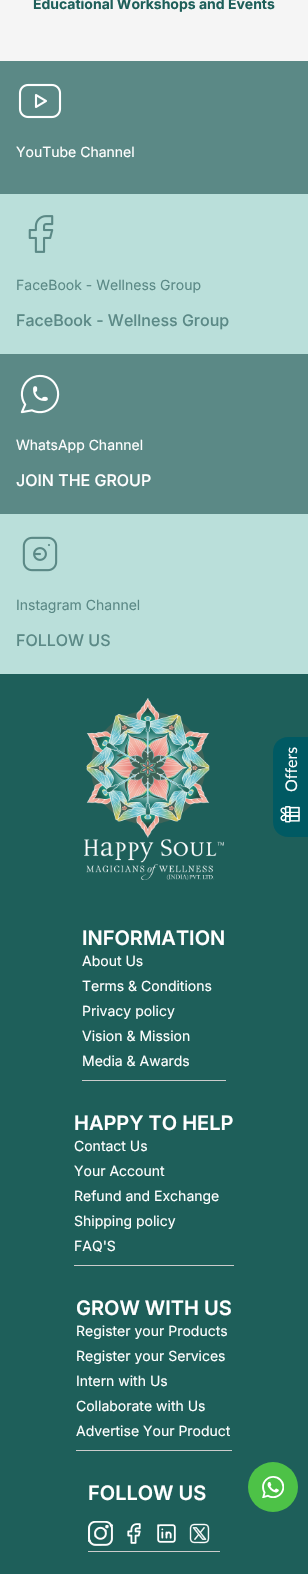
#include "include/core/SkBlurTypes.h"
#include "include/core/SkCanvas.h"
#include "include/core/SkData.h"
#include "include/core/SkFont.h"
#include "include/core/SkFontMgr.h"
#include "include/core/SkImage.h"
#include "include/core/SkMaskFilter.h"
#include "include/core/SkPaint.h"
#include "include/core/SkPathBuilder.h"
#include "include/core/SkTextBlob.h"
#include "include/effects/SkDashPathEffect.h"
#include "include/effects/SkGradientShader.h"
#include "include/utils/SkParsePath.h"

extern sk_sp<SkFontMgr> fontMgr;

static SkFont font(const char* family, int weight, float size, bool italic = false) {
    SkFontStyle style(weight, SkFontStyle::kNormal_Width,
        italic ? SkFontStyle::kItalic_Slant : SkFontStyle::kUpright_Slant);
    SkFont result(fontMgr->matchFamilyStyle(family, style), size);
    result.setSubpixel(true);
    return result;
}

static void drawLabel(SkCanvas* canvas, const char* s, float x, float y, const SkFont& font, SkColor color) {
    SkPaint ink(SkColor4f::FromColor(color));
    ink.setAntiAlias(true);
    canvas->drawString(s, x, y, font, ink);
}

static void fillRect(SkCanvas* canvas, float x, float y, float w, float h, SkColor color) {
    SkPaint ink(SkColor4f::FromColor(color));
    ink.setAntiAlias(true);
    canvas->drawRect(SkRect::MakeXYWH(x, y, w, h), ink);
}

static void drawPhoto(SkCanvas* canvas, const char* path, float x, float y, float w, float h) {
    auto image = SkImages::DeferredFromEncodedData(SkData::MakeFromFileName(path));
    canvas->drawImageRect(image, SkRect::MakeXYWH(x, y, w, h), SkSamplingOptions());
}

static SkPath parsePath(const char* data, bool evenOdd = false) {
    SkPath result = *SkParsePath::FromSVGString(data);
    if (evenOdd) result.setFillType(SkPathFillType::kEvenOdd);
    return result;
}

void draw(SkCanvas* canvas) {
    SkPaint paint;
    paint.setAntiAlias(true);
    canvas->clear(0xFFF5F5F5);
    SkFont font1 = font("Inter", 700, 14);
    drawLabel(canvas, "Educational Workshops and Events", 33, 9, font1, 0xFF1E5F5A);
    fillRect(canvas, 0, 61, 308, 133, 0xFF5B8986);
    drawPhoto(canvas, "assets/img1.png", 18, 83, 44, 36);
    SkFont font2 = font("Inter", 400, 14);
    drawLabel(canvas, "YouTube Channel", 16, 157, font2, 0xFFFFFFFF);
    fillRect(canvas, 0, 194, 308, 160, 0xFFBADFDA);
    drawPhoto(canvas, "assets/img2.png", 28, 215, 26, 38);
    drawLabel(canvas, "FaceBook - Wellness Group", 16, 290, font2, 0xFF5B8986);
    SkFont font3 = font("Inter", 500, 16);
    drawLabel(canvas, "FaceBook - Wellness Group", 16, 326, font3, 0xFF5B8986);
    fillRect(canvas, 0, 354, 308, 160, 0xFF5B8986);
    drawPhoto(canvas, "assets/img3.png", 20, 374, 40, 40);
    drawLabel(canvas, "WhatsApp Channel", 16, 450, font2, 0xFFFFFFFF);
    drawLabel(canvas, "JOIN THE GROUP", 16, 486, font3, 0xFFFFFFFF);
    fillRect(canvas, 0, 514, 308, 160, 0xFFBADFDA);
    drawPhoto(canvas, "assets/img4.png", 22, 536, 36, 36);
    drawLabel(canvas, "Instagram Channel", 16, 610, font2, 0xFF5B8986);
    drawLabel(canvas, "FOLLOW US", 16, 646, font3, 0xFF5B8986);
    fillRect(canvas, 0, 674, 308, 900, 0xFF1E5F5A);
    paint.setColor(0xFF005A63);
    canvas->drawPath(parsePath("M288 737H308V837H288C279.5 837 273 830.5 273 822V752C273 743.5 279.5 737 288 737Z"), paint);
    SkFont font4 = font("Lato", 400, 16);
    canvas->save();
    canvas->rotate(-90, 297, 792);
    drawLabel(canvas, "Offers", 297, 792, font4, 0xFFFFFFFF);
    canvas->restore();
    drawPhoto(canvas, "assets/img5.png", 280, 806, 20, 17);
    drawPhoto(canvas, "assets/img6.png", 84, 698, 140, 182);
    fillRect(canvas, 82, 1080, 144, 1, 0xFFCCCCCC);
    SkFont font5 = font("Inter", 600, 20);
    drawLabel(canvas, "INFORMATION", 82, 945, font5, 0xFFFFFFFF);
    drawLabel(canvas, "About Us", 82, 966, font2, 0xFFFFFFFF);
    drawLabel(canvas, "Terms & Conditions", 82, 991, font2, 0xFFFFFFFF);
    drawLabel(canvas, "Privacy policy", 82, 1016, font2, 0xFFFFFFFF);
    drawLabel(canvas, "Vision & Mission", 82, 1041, font2, 0xFFFFFFFF);
    drawLabel(canvas, "Media & Awards", 82, 1066, font2, 0xFFFFFFFF);
    fillRect(canvas, 74, 1265, 160, 1, 0xFFCCCCCC);
    drawLabel(canvas, "HAPPY TO HELP", 74, 1130, font5, 0xFFFFFFFF);
    drawLabel(canvas, "Contact Us", 74, 1151, font2, 0xFFFFFFFF);
    drawLabel(canvas, "Your Account", 74, 1176, font2, 0xFFFFFFFF);
    drawLabel(canvas, "Refund and Exchange", 74, 1201, font2, 0xFFFFFFFF);
    drawLabel(canvas, "Shipping policy", 74, 1226, font2, 0xFFFFFFFF);
    drawLabel(canvas, "FAQ'S", 74, 1251, font2, 0xFFFFFFFF);
    fillRect(canvas, 76, 1450, 156, 1, 0xFFCCCCCC);
    drawLabel(canvas, "GROW WITH US", 76, 1315, font5, 0xFFFFFFFF);
    drawLabel(canvas, "Register your Products", 76, 1336, font2, 0xFFFFFFFF);
    drawLabel(canvas, "Register your Services", 76, 1361, font2, 0xFFFFFFFF);
    drawLabel(canvas, "Intern with Us", 76, 1386, font2, 0xFFFFFFFF);
    drawLabel(canvas, "Collaborate with Us", 76, 1411, font2, 0xFFFFFFFF);
    drawLabel(canvas, "Advertise Your Product", 76, 1436, font2, 0xFFFFFFFF);
    fillRect(canvas, 88, 1551, 132, 1, 0xFFCCCCCC);
    drawLabel(canvas, "FOLLOW US", 88, 1500, font5, 0xFFFFFFFF);
    drawPhoto(canvas, "assets/img7.png", 88, 1521, 25, 25);
    drawPhoto(canvas, "assets/img8.png", 127, 1523, 14, 21);
    drawPhoto(canvas, "assets/img9.png", 157, 1524, 19, 19);
    drawPhoto(canvas, "assets/img10.png", 189, 1523, 21, 21);
    paint.setColor(0xFF4DC247);
    canvas->drawCircle(273, 1487, 25, paint);
    drawPhoto(canvas, "assets/img11.png", 262, 1476, 22, 22);
}
